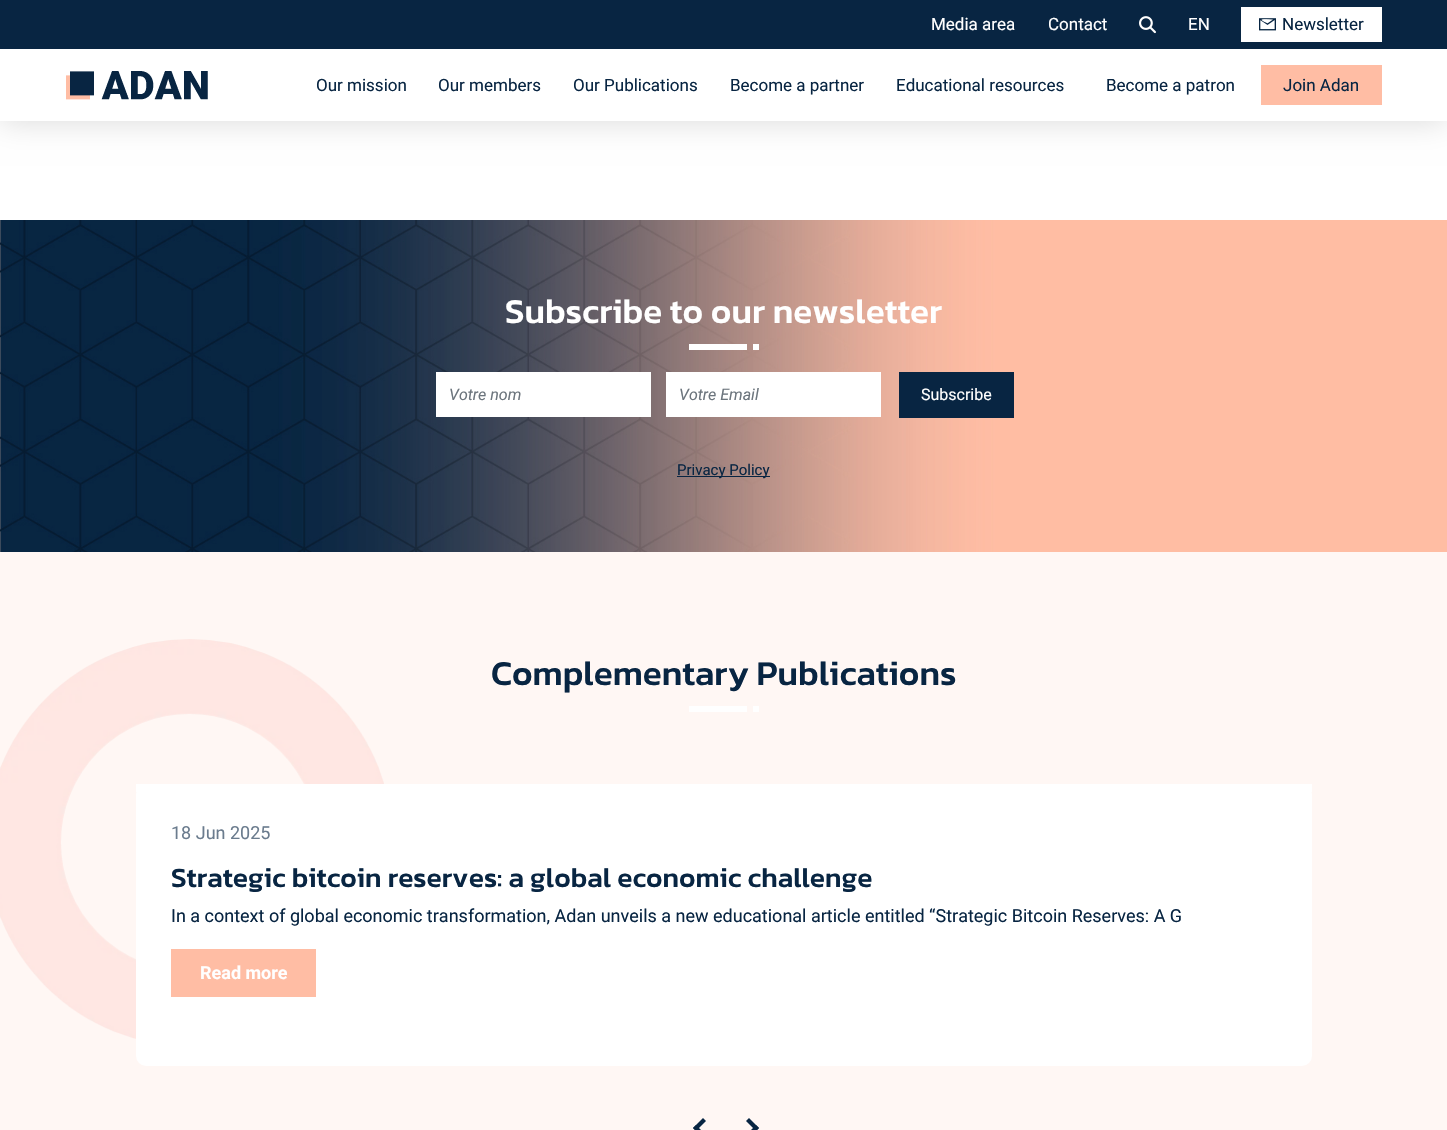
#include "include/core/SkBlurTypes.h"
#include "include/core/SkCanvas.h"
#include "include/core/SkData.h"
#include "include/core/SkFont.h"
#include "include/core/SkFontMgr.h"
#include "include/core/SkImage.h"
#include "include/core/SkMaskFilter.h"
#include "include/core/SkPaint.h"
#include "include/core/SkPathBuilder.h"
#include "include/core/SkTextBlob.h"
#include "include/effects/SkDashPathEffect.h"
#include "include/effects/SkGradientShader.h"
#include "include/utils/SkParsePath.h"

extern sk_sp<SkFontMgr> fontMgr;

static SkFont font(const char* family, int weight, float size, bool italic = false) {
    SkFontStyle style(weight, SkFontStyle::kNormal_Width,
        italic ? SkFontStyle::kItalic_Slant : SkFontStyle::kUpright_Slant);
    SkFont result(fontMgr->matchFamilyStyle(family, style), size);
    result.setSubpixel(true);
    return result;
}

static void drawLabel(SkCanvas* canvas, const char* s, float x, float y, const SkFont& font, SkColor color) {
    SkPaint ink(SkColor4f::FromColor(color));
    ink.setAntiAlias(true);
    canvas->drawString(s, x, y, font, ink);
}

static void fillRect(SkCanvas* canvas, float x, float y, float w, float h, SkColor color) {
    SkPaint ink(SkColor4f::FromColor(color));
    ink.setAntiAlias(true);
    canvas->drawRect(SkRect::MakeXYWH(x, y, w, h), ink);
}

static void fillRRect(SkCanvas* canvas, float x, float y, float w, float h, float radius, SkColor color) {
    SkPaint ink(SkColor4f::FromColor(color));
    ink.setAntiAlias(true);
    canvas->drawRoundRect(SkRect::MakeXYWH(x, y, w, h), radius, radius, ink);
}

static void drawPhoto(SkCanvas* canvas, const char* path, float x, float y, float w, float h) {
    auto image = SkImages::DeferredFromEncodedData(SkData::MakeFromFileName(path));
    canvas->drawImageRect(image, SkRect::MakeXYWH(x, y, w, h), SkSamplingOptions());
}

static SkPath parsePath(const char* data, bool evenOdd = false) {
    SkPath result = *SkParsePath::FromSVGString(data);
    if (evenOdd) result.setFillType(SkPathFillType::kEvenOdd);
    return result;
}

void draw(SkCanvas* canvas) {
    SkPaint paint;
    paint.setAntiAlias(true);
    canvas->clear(0xFFFFFFFF);
    paint.setColor(0x26000000);
    paint.setMaskFilter(SkMaskFilter::MakeBlur(kNormal_SkBlurStyle, 15));
    canvas->drawRect(SkRect::MakeXYWH(0, 0, 1447, 121), paint);
    paint.setMaskFilter(nullptr);
    fillRect(canvas, 0, 49, 1447, 72, 0xFFFFFFFF);
    fillRect(canvas, 0, 0, 1447, 49, 0xFF082542);
    SkFont font1 = font("Roboto", 400, 17);
    drawLabel(canvas, "Media area", 931, 30, font1, 0xFFFFFFFF);
    drawLabel(canvas, "Contact", 1048, 30, font1, 0xFFFFFFFF);
    drawPhoto(canvas, "assets/img1.png", 1139, 16, 17, 18);
    drawLabel(canvas, "EN", 1188, 30, font1, 0xFFFFFFFF);
    fillRect(canvas, 1241, 7, 141, 35, 0xFFFFFFFF);
    drawPhoto(canvas, "assets/img2.png", 1259, 18, 17, 13);
    drawLabel(canvas, "Newsletter", 1282, 30, font1, 0xFF082542);
    drawPhoto(canvas, "assets/img3.png", 66, 71, 142, 29);
    drawLabel(canvas, "Our mission", 316, 91, font1, 0xFF082542);
    drawLabel(canvas, "Our members", 438, 91, font1, 0xFF082542);
    drawLabel(canvas, "Our Publications", 573, 91, font1, 0xFF082542);
    drawLabel(canvas, "Become a partner", 730, 91, font1, 0xFF082542);
    drawLabel(canvas, "Educational resources", 896, 91, font1, 0xFF082542);
    drawLabel(canvas, "Become a patron", 1106, 91, font1, 0xFF082542);
    fillRect(canvas, 1261, 65, 121, 40, 0xFFFFBDA4);
    drawLabel(canvas, "Join Adan", 1283, 91, font1, 0xFF082542);
    drawPhoto(canvas, "assets/img4.png", 0, 220, 1447, 332);
    SkFont font2 = font("Kanit", 500, 35);
    drawLabel(canvas, "Subscribe to our newsletter", 505, 323, font2, 0xFFFFFFFF);
    fillRect(canvas, 689, 344, 58, 6, 0xFFFFFFFF);
    fillRect(canvas, 753, 344, 6, 6, 0xFFFFFFFF);
    paint.setColor(0xFFFFFFFF);
    canvas->drawRect(SkRect::MakeXYWH(436.5f, 372.5f, 214, 44), paint);
    paint.setStroke(true);
    paint.setStrokeWidth(1);
    canvas->drawRect(SkRect::MakeXYWH(436.5f, 372.5f, 214, 44), paint);
    SkFont font3 = font("Roboto", 400, 16, true);
    drawLabel(canvas, "Votre nom", 449, 400, font3, 0xFF6C757D);
    paint.setStroke(false);
    canvas->drawRect(SkRect::MakeXYWH(666.5f, 372.5f, 214, 44), paint);
    paint.setStroke(true);
    canvas->drawRect(SkRect::MakeXYWH(666.5f, 372.5f, 214, 44), paint);
    drawLabel(canvas, "Votre Email", 679, 400, font3, 0xFF6C757D);
    fillRect(canvas, 899, 372, 115, 46, 0xFF082542);
    SkFont font4 = font("Roboto", 400, 16);
    drawLabel(canvas, "Subscribe", 921, 400, font4, 0xFFFFFFFF);
    fillRect(canvas, 677, 476, 93, 1, 0xFF082542);
    SkFont font5 = font("Roboto", 400, 15);
    drawLabel(canvas, "Privacy Policy", 677, 475, font5, 0xFF082542);
    fillRect(canvas, 0, 552, 1447, 578, 0xFFFFF7F4);
    drawLabel(canvas, "Complementary Publications", 491, 685, font2, 0xFF082542);
    fillRect(canvas, 689, 706, 58, 6, 0xFFFFFFFF);
    fillRect(canvas, 753, 706, 6, 6, 0xFFFFFFFF);
    drawPhoto(canvas, "assets/img5.png", 0, 639, 384, 400);
    fillRRect(canvas, 136, 784, 1176, 282, 10, 0xFFFFFFFF);
    fillRect(canvas, 136, 784, 1176, 8, 0xFFFFFFFF);
    SkFont font6 = font("Roboto", 400, 18);
    drawLabel(canvas, "18 Jun 2025", 171, 839, font6, 0xFF6B7C8E);
    SkFont font7 = font("Kanit", 500, 28);
    drawLabel(canvas, "Strategic bitcoin reserves: a global economic challenge", 171, 887, font7, 0xFF082542);
    drawLabel(canvas, "In a context of global economic transformation, Adan unveils a new educational article entitled “Strategic Bitcoin Reserves: A G", 171, 922, font6, 0xFF082542);
    fillRect(canvas, 171, 949, 145, 48, 0xFFFFBDA4);
    SkFont font8 = font("Roboto", 700, 18);
    drawLabel(canvas, "Read more", 200, 979, font8, 0xFFFFFFFF);
    paint.setStroke(false);
    paint.setColor(0xFF082542);
    canvas->drawPath(parsePath("M706 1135L703 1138L693 1128L696 1125Z"), paint);
    canvas->drawPath(parsePath("M706 1121L696 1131L693 1128L703 1118Z"), paint);
    canvas->drawPath(parsePath("M746 1121L749 1118L759 1128L756 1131Z"), paint);
    canvas->drawPath(parsePath("M746 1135L756 1125L759 1128L749 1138Z"), paint);
}
